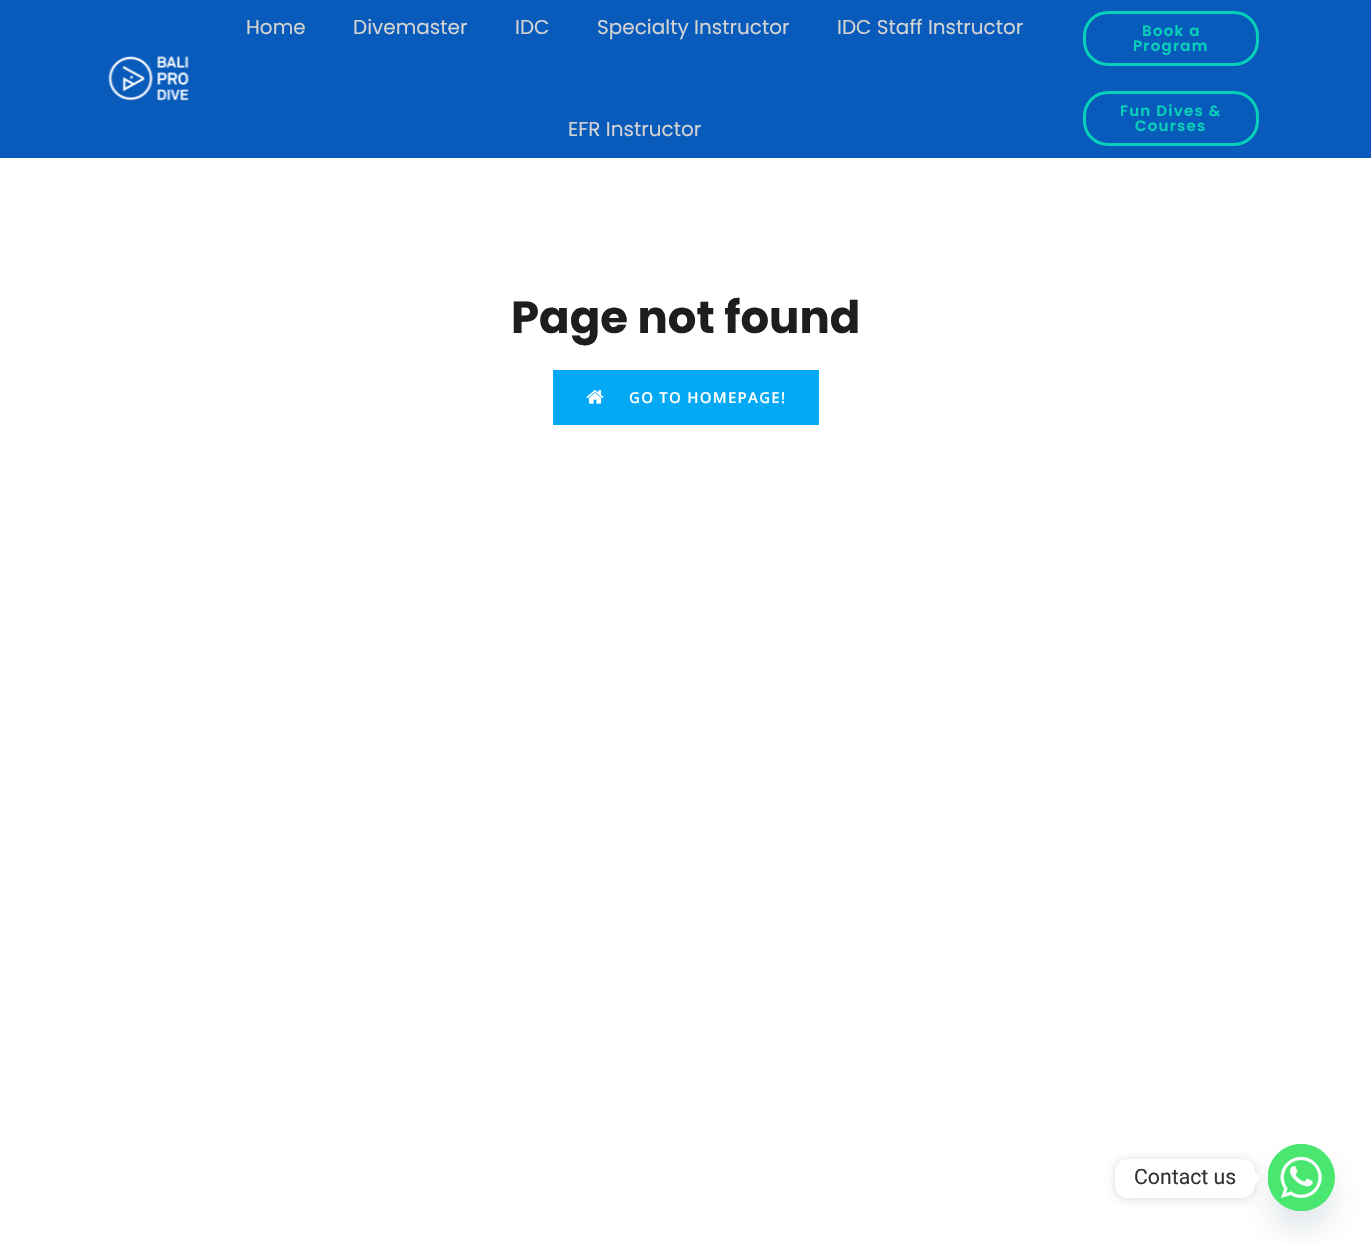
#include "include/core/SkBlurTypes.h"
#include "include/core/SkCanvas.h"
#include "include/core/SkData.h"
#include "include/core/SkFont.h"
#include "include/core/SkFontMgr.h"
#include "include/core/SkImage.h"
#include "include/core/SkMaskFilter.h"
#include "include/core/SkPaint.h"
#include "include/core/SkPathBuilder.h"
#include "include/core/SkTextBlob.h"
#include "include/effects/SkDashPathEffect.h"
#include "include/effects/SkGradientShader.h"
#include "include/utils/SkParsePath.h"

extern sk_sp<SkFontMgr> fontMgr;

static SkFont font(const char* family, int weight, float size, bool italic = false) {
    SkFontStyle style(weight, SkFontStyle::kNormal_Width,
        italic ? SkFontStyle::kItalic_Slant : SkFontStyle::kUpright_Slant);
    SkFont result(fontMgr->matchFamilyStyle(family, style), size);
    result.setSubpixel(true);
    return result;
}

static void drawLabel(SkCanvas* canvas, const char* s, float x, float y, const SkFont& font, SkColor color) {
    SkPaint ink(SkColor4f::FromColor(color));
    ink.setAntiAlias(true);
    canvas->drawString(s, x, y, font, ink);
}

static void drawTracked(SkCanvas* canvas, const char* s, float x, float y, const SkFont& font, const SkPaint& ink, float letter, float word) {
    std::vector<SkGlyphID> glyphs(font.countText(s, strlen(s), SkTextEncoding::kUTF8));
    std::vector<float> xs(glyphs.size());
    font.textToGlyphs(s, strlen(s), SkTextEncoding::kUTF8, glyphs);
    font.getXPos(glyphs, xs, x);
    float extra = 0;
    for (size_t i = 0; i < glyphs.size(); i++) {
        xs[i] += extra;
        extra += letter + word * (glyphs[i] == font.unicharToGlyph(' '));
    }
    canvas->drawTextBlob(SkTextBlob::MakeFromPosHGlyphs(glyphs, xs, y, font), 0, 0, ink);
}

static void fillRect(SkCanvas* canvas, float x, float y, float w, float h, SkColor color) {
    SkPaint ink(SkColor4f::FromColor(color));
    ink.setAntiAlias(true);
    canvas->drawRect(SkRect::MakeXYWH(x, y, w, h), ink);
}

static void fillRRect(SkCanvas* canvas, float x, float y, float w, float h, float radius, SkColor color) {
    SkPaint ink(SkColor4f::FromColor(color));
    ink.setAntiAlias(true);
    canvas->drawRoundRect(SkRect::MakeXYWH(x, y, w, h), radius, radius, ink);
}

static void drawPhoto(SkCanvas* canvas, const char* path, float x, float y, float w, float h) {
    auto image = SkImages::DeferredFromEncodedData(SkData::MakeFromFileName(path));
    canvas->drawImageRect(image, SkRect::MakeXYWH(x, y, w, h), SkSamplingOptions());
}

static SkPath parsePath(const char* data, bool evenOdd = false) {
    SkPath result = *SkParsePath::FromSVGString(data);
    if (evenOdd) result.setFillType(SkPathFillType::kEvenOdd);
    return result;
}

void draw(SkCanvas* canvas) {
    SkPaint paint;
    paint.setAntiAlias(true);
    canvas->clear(0xFFFFFFFF);
    fillRect(canvas, 0, 0, 1371, 158, 0xFF085ABB);
    drawPhoto(canvas, "assets/img1.png", 108, 56, 81, 45);
    SkFont font1 = font("Poppins", 400, 20);
    drawLabel(canvas, "Home", 246, 34, font1, 0xFFD3D3D3);
    drawLabel(canvas, "Divemaster", 353, 34, font1, 0xFFD3D3D3);
    drawLabel(canvas, "IDC", 515, 34, font1, 0xFFD3D3D3);
    drawLabel(canvas, "Specialty Instructor", 597, 34, font1, 0xFFD3D3D3);
    drawLabel(canvas, "IDC Staff Instructor", 837, 34, font1, 0xFFD3D3D3);
    drawLabel(canvas, "EFR Instructor", 568, 136, font1, 0xFFD3D3D3);
    paint.setStroke(true);
    paint.setStrokeWidth(3);
    paint.setColor(0xFF06D1B8);
    canvas->drawRoundRect(SkRect::MakeXYWH(1084.5f, 12.5f, 173, 52), 23.5f, 23.5f, paint);
    SkFont font2 = font("Poppins", 600, 15);
    paint.setStroke(false);
    drawTracked(canvas, "Book a", 1142, 36, font2, paint, 1.25f, 0);
    drawTracked(canvas, "Program", 1133, 51, font2, paint, 1.25f, 0);
    paint.setStroke(true);
    canvas->drawRoundRect(SkRect::MakeXYWH(1084.5f, 92.5f, 173, 52), 23.5f, 23.5f, paint);
    paint.setStroke(false);
    drawTracked(canvas, "Fun Dives &", 1120, 116, font2, paint, 1.25f, 0);
    drawTracked(canvas, "Courses", 1135, 131, font2, paint, 1.25f, 0);
    SkFont font3 = font("Poppins", 700, 45);
    drawLabel(canvas, "Page not found", 511, 333, font3, 0xFF1E1E1E);
    fillRect(canvas, 553, 370, 266, 55, 0xFF03A9F4);
    drawPhoto(canvas, "assets/img2.png", 586, 390, 18, 14);
    SkFont font4 = font("Open Sans", 600, 15);
    paint.setColor(0xFFFFFFFF);
    drawTracked(canvas, "GO TO HOMEPAGE!", 629, 403, font4, paint, 1.25f, 0);
    paint.setColor(0x2949687E);
    paint.setMaskFilter(SkMaskFilter::MakeBlur(kNormal_SkBlurStyle, 15));
    canvas->drawRoundRect(SkRect::MakeXYWH(1268, 1164, 67, 67), 33.5f, 33.5f, paint);
    paint.setMaskFilter(nullptr);
    paint.setColor(0xFF49E670);
    canvas->drawCircle(1301.5f, 1177.5f, 33.5f, paint);
    drawPhoto(canvas, "assets/img3.png", 1268, 1144, 67, 67);
    paint.setColor(0x26000000);
    paint.setMaskFilter(SkMaskFilter::MakeBlur(kNormal_SkBlurStyle, 5));
    canvas->drawRoundRect(SkRect::MakeXYWH(1115, 1160, 140, 39), 13, 13, paint);
    paint.setMaskFilter(nullptr);
    fillRRect(canvas, 1115, 1159, 140, 39, 13, 0xFFFFFFFF);
    SkFont font5 = font("Roboto", 400, 21.25f);
    drawLabel(canvas, "Contact us", 1134, 1184, font5, 0xFF333333);
    paint.setColor(0xFFFFFFFF);
    canvas->drawPath(parsePath("M1255 1184.5V1172L1261 1178Z"), paint);
}
